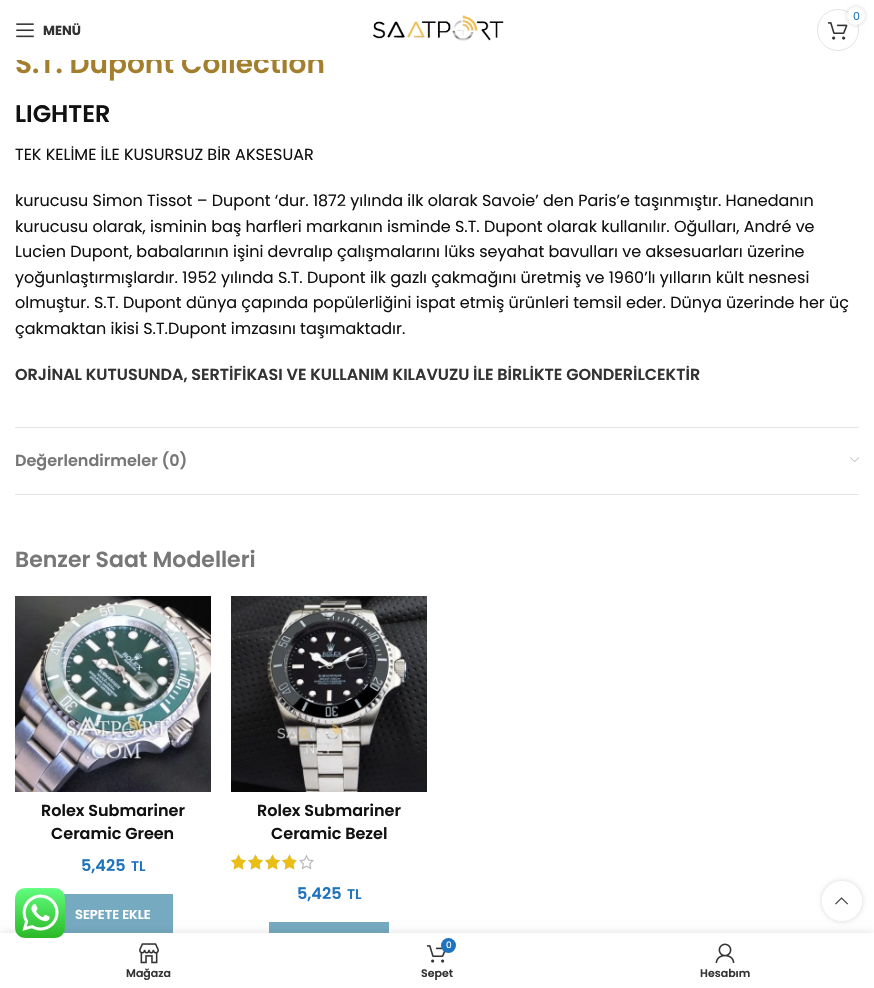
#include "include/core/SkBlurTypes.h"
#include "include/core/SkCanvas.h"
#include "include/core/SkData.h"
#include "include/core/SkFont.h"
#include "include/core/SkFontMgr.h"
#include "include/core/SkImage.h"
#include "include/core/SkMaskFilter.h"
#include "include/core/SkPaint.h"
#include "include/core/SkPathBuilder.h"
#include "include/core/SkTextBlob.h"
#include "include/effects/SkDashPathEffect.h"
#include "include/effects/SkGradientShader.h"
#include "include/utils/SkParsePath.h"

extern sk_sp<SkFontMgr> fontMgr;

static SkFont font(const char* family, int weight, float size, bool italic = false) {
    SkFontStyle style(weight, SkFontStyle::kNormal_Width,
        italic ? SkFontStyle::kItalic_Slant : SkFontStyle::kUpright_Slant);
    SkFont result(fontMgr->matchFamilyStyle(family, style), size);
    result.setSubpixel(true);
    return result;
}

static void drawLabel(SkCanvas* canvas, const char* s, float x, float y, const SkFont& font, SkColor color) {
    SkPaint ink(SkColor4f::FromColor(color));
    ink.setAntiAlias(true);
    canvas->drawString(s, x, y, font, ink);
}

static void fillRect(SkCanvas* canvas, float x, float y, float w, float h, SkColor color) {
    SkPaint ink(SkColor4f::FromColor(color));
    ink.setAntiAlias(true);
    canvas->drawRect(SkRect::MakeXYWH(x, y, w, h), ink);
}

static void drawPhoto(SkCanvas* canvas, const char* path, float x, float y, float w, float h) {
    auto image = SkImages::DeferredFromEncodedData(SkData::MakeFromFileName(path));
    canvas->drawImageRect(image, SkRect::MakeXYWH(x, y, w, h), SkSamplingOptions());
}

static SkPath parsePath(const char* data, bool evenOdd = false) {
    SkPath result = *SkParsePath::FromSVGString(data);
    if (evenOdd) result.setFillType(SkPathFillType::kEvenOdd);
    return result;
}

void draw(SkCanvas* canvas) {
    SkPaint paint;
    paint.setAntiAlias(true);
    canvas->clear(0xFFFFFFFF);
    SkFont font1 = font("Poppins", 600, 28);
    drawLabel(canvas, "S.T. Dupont Collection", 15, 73, font1, 0xFFA37E2C);
    fillRect(canvas, 16, 51, 307, 9, 0xFFFFFFFF);
    drawPhoto(canvas, "assets/img1.png", 16, 23, 18, 15);
    SkFont font2 = font("Poppins", 700, 13);
    drawLabel(canvas, "MENÜ", 43, 35, font2, 0xFF333333);
    drawPhoto(canvas, "assets/img2.png", 372, 15, 132, 26);
    paint.setStroke(true);
    paint.setStrokeWidth(1);
    paint.setColor(0xFFE4E4E4);
    canvas->drawCircle(838, 30, 20.5f, paint);
    drawPhoto(canvas, "assets/img3.png", 828, 22, 20, 18);
    paint.setStroke(false);
    paint.setColor(0x2B000000);
    paint.setMaskFilter(SkMaskFilter::MakeBlur(kNormal_SkBlurStyle, 2));
    canvas->drawRoundRect(SkRect::MakeXYWH(847, 7, 18, 18), 9, 9, paint);
    paint.setMaskFilter(nullptr);
    paint.setColor(0xFFFFFFFF);
    canvas->drawCircle(856, 16, 9, paint);
    SkFont font3 = font("Poppins", 400, 11);
    drawLabel(canvas, "0", 853, 20, font3, 0xFF1E73BE);
    fillRect(canvas, 15, 427, 844, 1, 0xFFE4E4E4);
    SkFont font4 = font("Poppins", 600, 24);
    drawLabel(canvas, "LIGHTER", 15, 122, font4, 0xFF111111);
    SkFont font5 = font("Poppins", 400, 16);
    drawLabel(canvas, "TEK KELİME İLE KUSURSUZ BİR AKSESUAR", 15, 160, font5, 0xFF111111);
    drawLabel(canvas, "kurucusu Simon Tissot – Dupont ‘dur. 1872 yılında ilk olarak Savoie’ den Paris’e taşınmıştır. Hanedanın", 15, 206, font5, 0xFF111111);
    drawLabel(canvas, "kurucusu olarak, isminin baş harfleri markanın isminde S.T. Dupont olarak kullanılır. Oğulları, André ve", 15, 232, font5, 0xFF111111);
    drawLabel(canvas, "Lucien Dupont, babalarının işini devralıp çalışmalarını lüks seyahat bavulları ve aksesuarları üzerine", 15, 257, font5, 0xFF111111);
    drawLabel(canvas, "yoğunlaştırmışlardır. 1952 yılında S.T. Dupont ilk gazlı çakmağını üretmiş ve 1960’lı yılların kült nesnesi", 15, 283, font5, 0xFF111111);
    drawLabel(canvas, "olmuştur. S.T. Dupont dünya çapında popülerliğini ispat etmiş ürünleri temsil eder. Dünya üzerinde her üç", 15, 308, font5, 0xFF111111);
    drawLabel(canvas, "çakmaktan ikisi S.T.Dupont imzasını taşımaktadır.", 15, 334, font5, 0xFF111111);
    SkFont font6 = font("Poppins", 600, 16);
    drawLabel(canvas, "ORJİNAL KUTUSUNDA, SERTİFİKASI VE KULLANIM KILAVUZU İLE BİRLİKTE GONDERİLCEKTİR", 15, 380, font6, 0xFF333333);
    fillRect(canvas, 15, 494, 844, 1, 0xFFE4E4E4);
    drawLabel(canvas, "Değerlendirmeler (0)", 15, 466, font6, 0xFF777777);
    drawPhoto(canvas, "assets/img4.png", 850, 457, 10, 5);
    SkFont font7 = font("Poppins", 600, 22);
    drawLabel(canvas, "Benzer Saat Modelleri", 15, 567, font7, 0xFF777777);
    drawPhoto(canvas, "assets/img5.png", 15, 596, 196, 196);
    drawLabel(canvas, "Rolex Submariner", 41, 816, font6, 0xFF111111);
    drawLabel(canvas, "Ceramic Green", 51, 839, font6, 0xFF111111);
    drawLabel(canvas, "5,425", 81, 871, font6, 0xFF1E73BE);
    SkFont font8 = font("Poppins", 600, 14);
    drawLabel(canvas, "TL", 131, 871, font8, 0xFF1E73BE);
    fillRect(canvas, 63, 894, 110, 39, 0xFF76AAC1);
    SkFont font9 = font("Poppins", 600, 13);
    drawLabel(canvas, "SEPETE EKLE", 75, 919, font9, 0xFFFFFFFF);
    drawPhoto(canvas, "assets/img6.png", 231, 596, 196, 196);
    drawLabel(canvas, "Rolex Submariner", 257, 816, font6, 0xFF111111);
    drawLabel(canvas, "Ceramic Bezel", 271, 839, font6, 0xFF111111);
    drawPhoto(canvas, "assets/img7.png", 231, 854, 83, 16);
    drawPhoto(canvas, "assets/img8.png", 231, 854, 64, 16);
    drawLabel(canvas, "5,425", 297, 899, font6, 0xFF1E73BE);
    drawLabel(canvas, "TL", 347, 899, font8, 0xFF1E73BE);
    fillRect(canvas, 269, 922, 120, 11, 0xFF76AAC1);
    canvas->save();
    canvas->clipPath(parsePath("M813 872H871V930H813ZM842 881C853 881 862 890 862 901C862 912 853 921 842 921C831 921 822 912 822 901C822 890 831 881 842 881Z", true), true);
    paint.setColor(0x2B000000);
    paint.setMaskFilter(SkMaskFilter::MakeBlur(kNormal_SkBlurStyle, 2.5f));
    canvas->drawRoundRect(SkRect::MakeXYWH(822, 881, 40, 40), 20, 20, paint);
    paint.setMaskFilter(nullptr);
    canvas->restore();
    paint.setColor(0xE6FFFFFF);
    canvas->drawCircle(842, 901, 20, paint);
    paint.setColor(0x1F000000);
    paint.setMaskFilter(SkMaskFilter::MakeBlur(kNormal_SkBlurStyle, 4.5f));
    canvas->drawRect(SkRect::MakeXYWH(0, 933, 874, 55), paint);
    paint.setMaskFilter(nullptr);
    fillRect(canvas, 0, 933, 874, 55, 0xFFFFFFFF);
    drawPhoto(canvas, "assets/img9.png", 15, 888, 50, 50);
    drawPhoto(canvas, "assets/img10.png", 835, 897, 13, 8);
    drawPhoto(canvas, "assets/img11.png", 139, 943, 20, 21);
    SkFont font10 = font("Poppins", 600, 11);
    drawLabel(canvas, "Mağaza", 126, 977, font10, 0xFF333333);
    drawPhoto(canvas, "assets/img12.png", 427, 945, 19, 18);
    paint.setColor(0xFF1E73BE);
    canvas->drawCircle(448.5f, 945.5f, 7.5f, paint);
    SkFont font11 = font("Poppins", 400, 9);
    drawLabel(canvas, "0", 446, 948, font11, 0xFFFFFFFF);
    drawLabel(canvas, "Sepet", 421, 977, font10, 0xFF333333);
    drawPhoto(canvas, "assets/img13.png", 715, 943, 20, 20);
    drawLabel(canvas, "Hesabım", 700, 977, font10, 0xFF333333);
}
